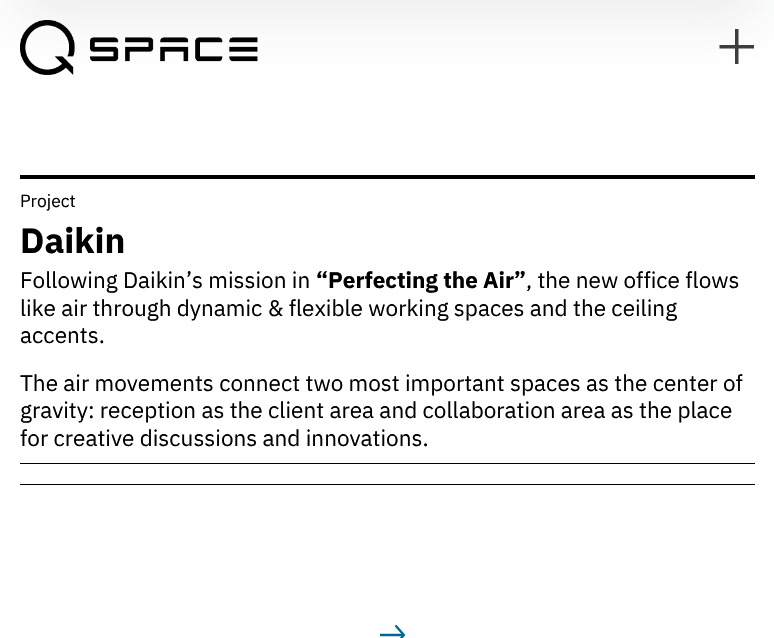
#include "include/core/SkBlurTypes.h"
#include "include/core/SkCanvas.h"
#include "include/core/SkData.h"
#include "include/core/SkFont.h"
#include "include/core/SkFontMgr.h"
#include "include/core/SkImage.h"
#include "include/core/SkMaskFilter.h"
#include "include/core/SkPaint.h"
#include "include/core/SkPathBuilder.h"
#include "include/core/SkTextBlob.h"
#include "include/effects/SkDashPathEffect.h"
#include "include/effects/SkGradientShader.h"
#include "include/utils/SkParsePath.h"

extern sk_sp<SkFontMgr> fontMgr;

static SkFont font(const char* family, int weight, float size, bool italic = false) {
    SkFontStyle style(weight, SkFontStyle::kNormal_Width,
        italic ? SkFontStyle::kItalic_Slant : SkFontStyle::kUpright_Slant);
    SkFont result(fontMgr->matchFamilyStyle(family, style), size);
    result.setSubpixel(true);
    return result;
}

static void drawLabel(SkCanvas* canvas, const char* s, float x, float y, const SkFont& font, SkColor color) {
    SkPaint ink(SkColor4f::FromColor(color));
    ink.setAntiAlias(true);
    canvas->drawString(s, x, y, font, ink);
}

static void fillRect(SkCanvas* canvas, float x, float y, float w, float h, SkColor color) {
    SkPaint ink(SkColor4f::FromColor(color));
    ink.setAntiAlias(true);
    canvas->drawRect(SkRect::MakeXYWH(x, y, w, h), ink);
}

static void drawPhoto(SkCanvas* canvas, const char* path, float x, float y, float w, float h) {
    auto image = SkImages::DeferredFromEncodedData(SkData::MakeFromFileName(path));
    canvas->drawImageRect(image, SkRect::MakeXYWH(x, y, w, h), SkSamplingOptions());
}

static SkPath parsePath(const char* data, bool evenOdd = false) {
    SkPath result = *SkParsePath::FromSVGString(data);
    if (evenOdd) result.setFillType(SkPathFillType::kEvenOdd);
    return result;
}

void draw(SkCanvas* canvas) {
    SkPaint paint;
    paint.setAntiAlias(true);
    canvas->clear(0xFFFFFFFF);
    drawPhoto(canvas, "assets/img1.png", 20, 20, 238, 55);
    paint.setColor(0xFF3D3D3D);
    canvas->drawPath(parsePath("M735 64V48.5H719.5V45H735V29H738.5V45H754V48.5H738.5V64Z"), paint);
    paint.setColor(0x1A263238);
    paint.setMaskFilter(SkMaskFilter::MakeBlur(kNormal_SkBlurStyle, 31));
    canvas->drawRect(SkRect::MakeXYWH(15, -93, 745, 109), paint);
    paint.setMaskFilter(nullptr);
    fillRect(canvas, 20, 175, 735, 4, 0xFF000000);
    fillRect(canvas, 20, 463, 735, 1, 0xFF000000);
    SkFont font1 = font("IBM Plex Sans", 400, 17.5f);
    drawLabel(canvas, "Project", 20, 207, font1, 0xFF000000);
    SkFont font2 = font("IBM Plex Sans", 700, 35);
    drawLabel(canvas, "Daikin", 20, 253, font2, 0xFF000000);
    SkFont font3 = font("IBM Plex Sans", 400, 22.5f);
    drawLabel(canvas, "Following Daikin’s mission in", 20, 288, font3, 0xFF000000);
    SkFont font4 = font("IBM Plex Sans", 700, 22.5f);
    drawLabel(canvas, "“Perfecting the Air”", 316, 288, font4, 0xFF000000);
    drawLabel(canvas, ", the new office flows", 526, 288, font3, 0xFF000000);
    drawLabel(canvas, "like air through dynamic & flexible working spaces and the ceiling", 20, 316, font3, 0xFF000000);
    drawLabel(canvas, "accents.", 20, 343, font3, 0xFF000000);
    drawLabel(canvas, "The air movements connect two most important spaces as the center of", 20, 391, font3, 0xFF000000);
    drawLabel(canvas, "gravity: reception as the client area and collaboration area as the place", 20, 418, font3, 0xFF000000);
    drawLabel(canvas, "for creative discussions and innovations.", 20, 446, font3, 0xFF000000);
    fillRect(canvas, 20, 484, 735, 1, 0xFF000000);
    drawPhoto(canvas, "assets/img2.png", 380, 625, 25, 13);
}
